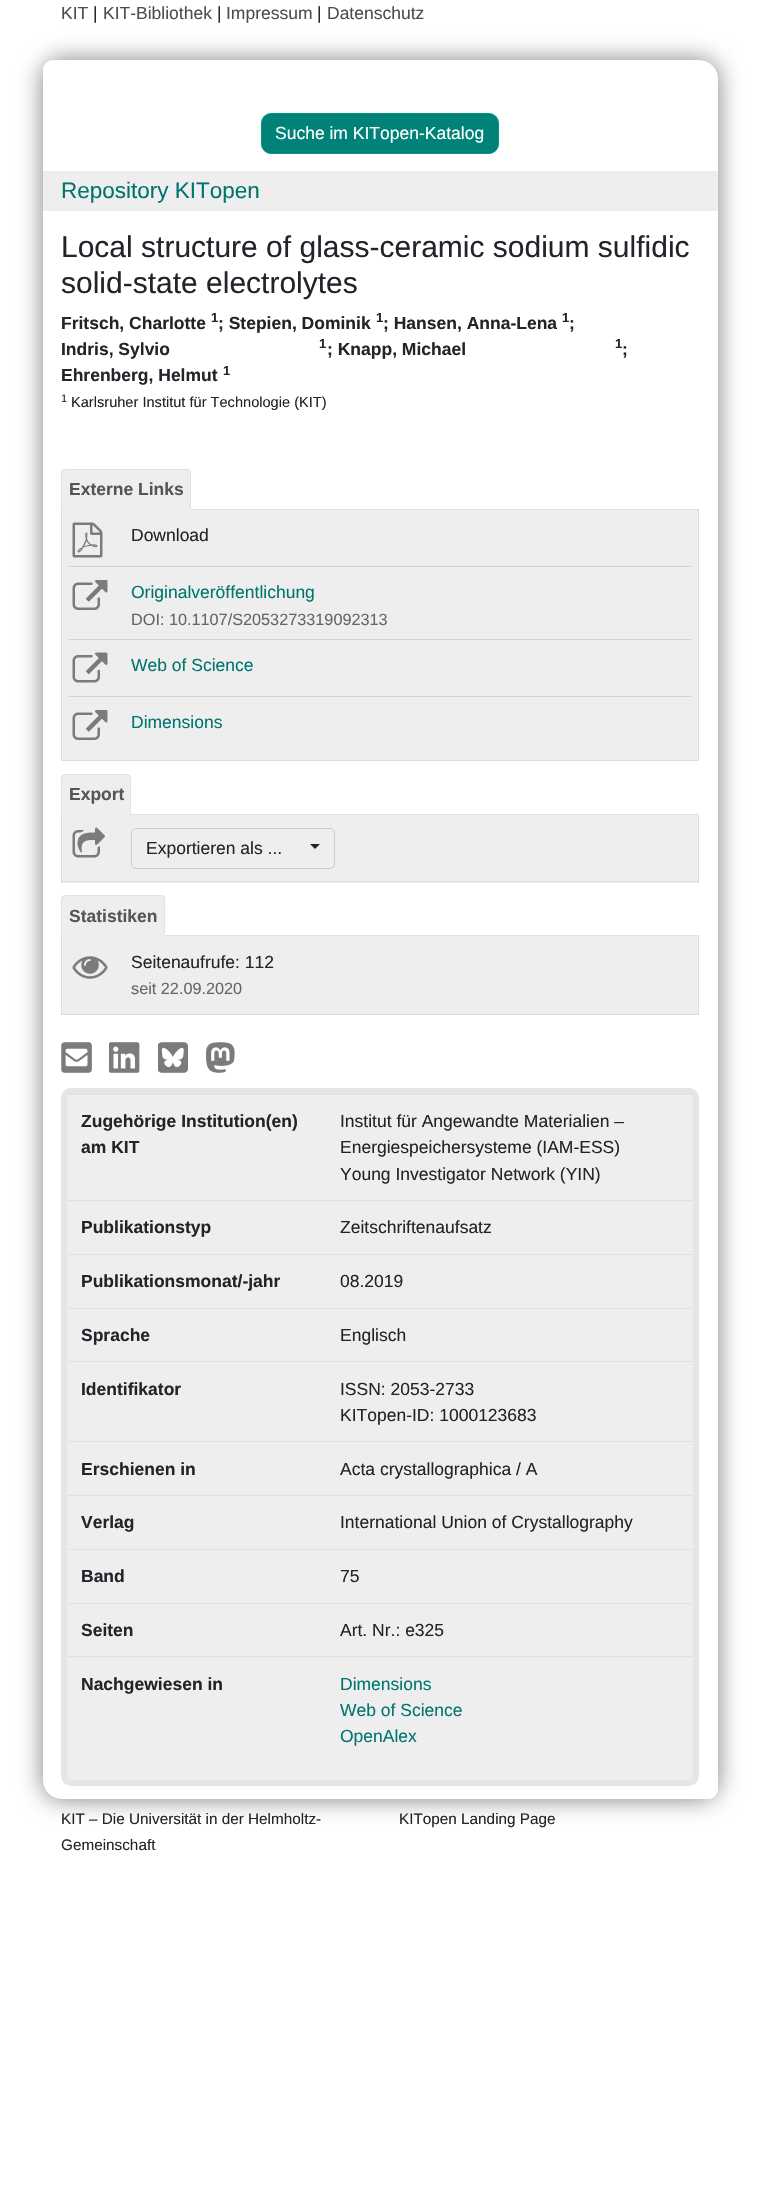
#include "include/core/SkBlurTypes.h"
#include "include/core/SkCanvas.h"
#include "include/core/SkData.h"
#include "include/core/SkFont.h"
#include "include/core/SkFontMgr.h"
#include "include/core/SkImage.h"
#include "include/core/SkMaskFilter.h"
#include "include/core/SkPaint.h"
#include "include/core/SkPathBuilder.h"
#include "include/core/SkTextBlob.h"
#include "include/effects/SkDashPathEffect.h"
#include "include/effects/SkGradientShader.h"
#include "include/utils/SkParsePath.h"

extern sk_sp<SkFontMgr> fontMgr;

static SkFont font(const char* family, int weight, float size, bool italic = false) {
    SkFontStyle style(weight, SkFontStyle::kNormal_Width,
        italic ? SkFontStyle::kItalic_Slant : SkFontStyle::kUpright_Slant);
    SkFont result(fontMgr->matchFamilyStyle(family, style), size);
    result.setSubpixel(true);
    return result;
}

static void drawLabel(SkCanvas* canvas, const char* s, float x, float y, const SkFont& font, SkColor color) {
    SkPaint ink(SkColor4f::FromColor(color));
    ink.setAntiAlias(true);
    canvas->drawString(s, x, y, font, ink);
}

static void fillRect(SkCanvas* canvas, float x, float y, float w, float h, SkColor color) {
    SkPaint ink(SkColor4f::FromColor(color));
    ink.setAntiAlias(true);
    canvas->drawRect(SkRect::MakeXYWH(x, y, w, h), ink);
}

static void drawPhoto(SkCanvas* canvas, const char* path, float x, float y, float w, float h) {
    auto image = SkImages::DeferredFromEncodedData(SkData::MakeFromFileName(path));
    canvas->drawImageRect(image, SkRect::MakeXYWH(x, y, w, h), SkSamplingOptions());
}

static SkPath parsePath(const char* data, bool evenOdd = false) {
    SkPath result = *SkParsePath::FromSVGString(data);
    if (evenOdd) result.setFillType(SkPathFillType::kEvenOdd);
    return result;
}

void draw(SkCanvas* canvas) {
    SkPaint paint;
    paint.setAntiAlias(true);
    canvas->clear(0xFFFFFFFF);
    SkFont font1 = font("Liberation Sans", 400, 17.5f);
    drawLabel(canvas, "KIT", 61, 19, font1, 0xFF4D4D4D);
    canvas->save();
    canvas->clipPath(parsePath("M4 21H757V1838H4ZM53 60H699C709.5 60 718 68.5 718 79V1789C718 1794.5 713.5 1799 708 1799H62C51.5 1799 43 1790.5 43 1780V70C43 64.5 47.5 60 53 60Z", true), true);
    paint.setColor(0xFF808080);
    paint.setMaskFilter(SkMaskFilter::MakeBlur(kNormal_SkBlurStyle, 12.5f));
    canvas->drawRoundRect(SkRect::MakeXYWH(43, 60, 675, 1739), 19, 19, paint);
    paint.setMaskFilter(nullptr);
    canvas->restore();
    drawLabel(canvas, "|", 93, 19, font1, 0xFF212529);
    drawLabel(canvas, "KIT-Bibliothek", 103, 19, font1, 0xFF4D4D4D);
    drawLabel(canvas, "|", 217, 19, font1, 0xFF212529);
    drawLabel(canvas, "Impressum", 226, 19, font1, 0xFF4D4D4D);
    drawLabel(canvas, "|", 317, 19, font1, 0xFF212529);
    drawLabel(canvas, "Datenschutz", 327, 19, font1, 0xFF4D4D4D);
    paint.setColor(0xFF008278);
    canvas->drawRoundRect(SkRect::MakeXYWH(261.5f, 113.5f, 237, 40), 9.5f, 9.5f, paint);
    paint.setStroke(true);
    paint.setStrokeWidth(1);
    paint.setColor(0xFF009682);
    canvas->drawRoundRect(SkRect::MakeXYWH(261.5f, 113.5f, 237, 40), 9.5f, 9.5f, paint);
    drawLabel(canvas, "Suche im KITopen-Katalog", 275, 139, font1, 0xFFFFFFFF);
    fillRect(canvas, 43, 171, 675, 40, 0xFFEEEEEE);
    SkFont font2 = font("Liberation Sans", 400, 22.5f);
    drawLabel(canvas, "Repository KITopen", 61, 198, font2, 0xFF007570);
    SkFont font3 = font("Liberation Sans", 400, 30);
    drawLabel(canvas, "Local structure of glass-ceramic sodium sulfidic", 61, 257, font3, 0xFF212529);
    drawLabel(canvas, "solid-state electrolytes", 61, 293, font3, 0xFF212529);
    SkFont font4 = font("Liberation Sans", 700, 17.5f);
    drawLabel(canvas, "Fritsch, Charlotte", 61, 329, font4, 0xFF212529);
    SkFont font5 = font("Liberation Sans", 700, 13);
    drawLabel(canvas, "1", 211, 322, font5, 0xFF212529);
    drawLabel(canvas, "; Stepien, Dominik", 218, 329, font4, 0xFF212529);
    drawLabel(canvas, "1", 376, 322, font5, 0xFF212529);
    drawLabel(canvas, "; Hansen, Anna-Lena", 383, 329, font4, 0xFF212529);
    drawLabel(canvas, "1", 562, 322, font5, 0xFF212529);
    drawLabel(canvas, ";", 569, 329, font4, 0xFF212529);
    drawLabel(canvas, "Indris, Sylvio", 61, 355, font4, 0xFF212529);
    drawLabel(canvas, "1", 319, 348, font5, 0xFF212529);
    drawLabel(canvas, "; Knapp, Michael", 327, 355, font4, 0xFF212529);
    drawLabel(canvas, "1", 615, 348, font5, 0xFF212529);
    drawLabel(canvas, ";", 622, 355, font4, 0xFF212529);
    drawLabel(canvas, "Ehrenberg, Helmut", 61, 381, font4, 0xFF212529);
    drawLabel(canvas, "1", 223, 375, font5, 0xFF212529);
    SkFont font6 = font("Liberation Sans", 400, 11);
    drawLabel(canvas, "1", 61, 402, font6, 0xFF212529);
    SkFont font7 = font("Liberation Sans", 400, 14.6f);
    drawLabel(canvas, "Karlsruher Institut für Technologie (KIT)", 71, 407, font7, 0xFF212529);
    fillRect(canvas, 191, 509, 508, 1, 0xFFDEE2E6);
    paint.setStroke(false);
    paint.setColor(0xFFEEEEEE);
    canvas->drawPath(parsePath("M66 469H186C189 469 191 471 191 474V510H61V474C61 471 63 469 66 469Z"), paint);
    paint.setColor(0xFFDEE2E6);
    canvas->drawPath(parsePath("M66 469L63 470V471L66 470H187L189 471L190 470L187 469Z"), paint);
    canvas->drawPath(parsePath("M191 510V473C191 472 190.5 471 190 470L189 471C190 471 190 472 190 473V509Z"), paint);
    paint.setColor(0xFFEEEEEE);
    canvas->drawPath(parsePath("M61 510H191L190 509H62Z"), paint);
    paint.setColor(0xFFDEE2E6);
    canvas->drawPath(parsePath("M61 510L62 509V472.5L63 471L62.5 470L61 472Z"), paint);
    drawLabel(canvas, "Externe Links", 69, 495, font4, 0xFF555555);
    fillRect(canvas, 62, 510, 636, 250, 0xFFEEEEEE);
    fillRect(canvas, 698, 510, 1, 251, 0xFFDDDDDD);
    fillRect(canvas, 61, 760, 638, 1, 0xFFDDDDDD);
    fillRect(canvas, 61, 510, 1, 251, 0xFFDDDDDD);
    fillRect(canvas, 69, 566, 622, 1, 0xFFD3D3D3);
    drawPhoto(canvas, "assets/img1.png", 72, 522, 31, 36);
    drawLabel(canvas, "Download", 131, 541, font1, 0xFF212529);
    fillRect(canvas, 69, 639, 622, 1, 0xFFD3D3D3);
    drawPhoto(canvas, "assets/img2.png", 72, 580, 36, 30);
    drawLabel(canvas, "Originalveröffentlichung", 131, 598, font1, 0xFF007570);
    SkFont font8 = font("Liberation Sans", 400, 16.25f);
    drawLabel(canvas, "DOI: 10.1107/S2053273319092313", 131, 625, font8, 0xFF666666);
    fillRect(canvas, 69, 696, 622, 1, 0xFFD3D3D3);
    drawPhoto(canvas, "assets/img3.png", 72, 652, 36, 31);
    drawLabel(canvas, "Web of Science", 131, 671, font1, 0xFF007570);
    drawPhoto(canvas, "assets/img2.png", 72, 710, 36, 30);
    drawLabel(canvas, "Dimensions", 131, 728, font1, 0xFF007570);
    fillRect(canvas, 131, 814, 568, 1, 0xFFDEE2E6);
    paint.setColor(0xFFEEEEEE);
    canvas->drawPath(parsePath("M66 774H126C129 774 131 776 131 779V815H61V779C61 776 63 774 66 774Z"), paint);
    paint.setColor(0xFFDEE2E6);
    canvas->drawPath(parsePath("M66 774L63 775V776C66 774 75 775 76 775H127L129 776L130 775L127 774Z"), paint);
    canvas->drawPath(parsePath("M131 815V778C131 777 130.5 776 130 775L129 776C130 776 130 777 130 778V814Z"), paint);
    paint.setColor(0xFFEEEEEE);
    canvas->drawPath(parsePath("M61 815H131L130 814H62Z"), paint);
    paint.setColor(0xFFDEE2E6);
    canvas->drawPath(parsePath("M61 815L62 814V777.5L63 776L62.5 775L61 777Z"), paint);
    drawLabel(canvas, "Export", 69, 800, font4, 0xFF555555);
    fillRect(canvas, 62, 815, 636, 68, 0xFFEEEEEE);
    fillRect(canvas, 698, 815, 1, 68, 0xFFDDDDDD);
    fillRect(canvas, 61, 881, 638, 1, 0xFFDDDDDD);
    fillRect(canvas, 61, 815, 1, 68, 0xFFDDDDDD);
    drawPhoto(canvas, "assets/img4.png", 72, 827, 33, 31);
    paint.setStroke(true);
    paint.setColor(0xFFCCCCCC);
    canvas->drawRoundRect(SkRect::MakeXYWH(131.5f, 828.5f, 203, 40), 4.5f, 4.5f, paint);
    drawLabel(canvas, "Exportieren als ...", 146, 854, font1, 0xFF212529);
    paint.setStroke(false);
    paint.setColor(0xFF212529);
    canvas->drawPath(parsePath("M310 844H320L315 849Z"), paint);
    fillRect(canvas, 165, 935, 534, 1, 0xFFDEE2E6);
    paint.setColor(0xFFEEEEEE);
    canvas->drawPath(parsePath("M66 895H160C163 895 165 897 165 900V936H61V900C61 897 63 895 66 895Z"), paint);
    paint.setColor(0xFFDEE2E6);
    canvas->drawPath(parsePath("M66 895L62 896L63 897C64 896 65 896 66 896H161L163 897L164 896L161 895Z"), paint);
    canvas->drawPath(parsePath("M165 936V899C165 898 164.5 897 164 896L163 897L164 899V935Z"), paint);
    paint.setColor(0xFFEEEEEE);
    canvas->drawPath(parsePath("M165 936H62V935H164Z"), paint);
    paint.setColor(0xFFDEE2E6);
    canvas->drawPath(parsePath("M61 898L62.5 896L63.5 897L62 899V935H62.5L61.5 936H61Z"), paint);
    drawLabel(canvas, "Statistiken", 69, 922, font4, 0xFF555555);
    fillRect(canvas, 62, 936, 636, 78, 0xFFEEEEEE);
    fillRect(canvas, 698, 936, 1, 79, 0xFFDDDDDD);
    fillRect(canvas, 61, 1014, 638, 1, 0xFFDDDDDD);
    fillRect(canvas, 61, 936, 1, 79, 0xFFDDDDDD);
    drawPhoto(canvas, "assets/img5.png", 72, 956, 36, 23);
    drawLabel(canvas, "Seitenaufrufe: 112", 131, 968, font1, 0xFF212529);
    drawLabel(canvas, "seit 22.09.2020", 131, 994, font8, 0xFF666666);
    drawPhoto(canvas, "assets/img6.png", 61, 1042, 31, 31);
    drawPhoto(canvas, "assets/img7.png", 109, 1042, 31, 31);
    drawPhoto(canvas, "assets/img8.png", 158, 1042, 30, 31);
    drawPhoto(canvas, "assets/img9.png", 206, 1042, 29, 31);
    paint.setColor(0xFFEEEEEE);
    canvas->drawRoundRect(SkRect::MakeXYWH(64, 1091, 632, 692), 7, 7, paint);
    paint.setStroke(true);
    paint.setStrokeWidth(6);
    paint.setColor(0xFFE5E5E5);
    canvas->drawRoundRect(SkRect::MakeXYWH(64, 1091, 632, 692), 7, 7, paint);
    drawLabel(canvas, "Zugehörige Institution(en)", 81, 1127, font4, 0xFF212529);
    drawLabel(canvas, "am KIT", 81, 1153, font4, 0xFF212529);
    fillRect(canvas, 68, 1094, 626, 1, 0xFFDEE2E6);
    drawLabel(canvas, "Institut für Angewandte Materialien –", 340, 1127, font1, 0xFF212529);
    drawLabel(canvas, "Energiespeichersysteme (IAM-ESS)", 340, 1153, font1, 0xFF212529);
    drawLabel(canvas, "Young Investigator Network (YIN)", 340, 1180, font1, 0xFF212529);
    drawLabel(canvas, "Publikationstyp", 81, 1233, font4, 0xFF212529);
    fillRect(canvas, 68, 1200, 626, 1, 0xFFDEE2E6);
    drawLabel(canvas, "Zeitschriftenaufsatz", 340, 1233, font1, 0xFF212529);
    drawLabel(canvas, "Publikationsmonat/-jahr", 81, 1287, font4, 0xFF212529);
    fillRect(canvas, 68, 1254, 626, 1, 0xFFDEE2E6);
    drawLabel(canvas, "08.2019", 340, 1287, font1, 0xFF212529);
    drawLabel(canvas, "Sprache", 81, 1341, font4, 0xFF212529);
    fillRect(canvas, 68, 1308, 626, 1, 0xFFDEE2E6);
    drawLabel(canvas, "Englisch", 340, 1341, font1, 0xFF212529);
    drawLabel(canvas, "Identifikator", 81, 1395, font4, 0xFF212529);
    fillRect(canvas, 68, 1361, 626, 1, 0xFFDEE2E6);
    drawLabel(canvas, "ISSN: 2053-2733", 340, 1395, font1, 0xFF212529);
    drawLabel(canvas, "KITopen-ID: 1000123683", 340, 1421, font1, 0xFF212529);
    drawLabel(canvas, "Erschienen in", 81, 1475, font4, 0xFF212529);
    fillRect(canvas, 68, 1441, 626, 1, 0xFFDEE2E6);
    drawLabel(canvas, "Acta crystallographica / A", 340, 1475, font1, 0xFF212529);
    drawLabel(canvas, "Verlag", 81, 1528, font4, 0xFF212529);
    fillRect(canvas, 68, 1495, 626, 1, 0xFFDEE2E6);
    drawLabel(canvas, "International Union of Crystallography", 340, 1528, font1, 0xFF212529);
    drawLabel(canvas, "Band", 81, 1582, font4, 0xFF212529);
    fillRect(canvas, 68, 1549, 626, 1, 0xFFDEE2E6);
    drawLabel(canvas, "75", 340, 1582, font1, 0xFF212529);
    drawLabel(canvas, "Seiten", 81, 1636, font4, 0xFF212529);
    fillRect(canvas, 68, 1603, 626, 1, 0xFFDEE2E6);
    drawLabel(canvas, "Art. Nr.: e325", 340, 1636, font1, 0xFF212529);
    drawLabel(canvas, "Nachgewiesen in", 81, 1690, font4, 0xFF212529);
    fillRect(canvas, 68, 1656, 626, 1, 0xFFDEE2E6);
    drawLabel(canvas, "Dimensions", 340, 1690, font1, 0xFF007570);
    drawLabel(canvas, "Web of Science", 340, 1716, font1, 0xFF007570);
    drawLabel(canvas, "OpenAlex", 340, 1742, font1, 0xFF007570);
    SkFont font9 = font("Liberation Sans", 400, 15.3f);
    drawLabel(canvas, "KIT – Die Universität in der Helmholtz-", 61, 1824, font9, 0xFF212529);
    drawLabel(canvas, "Gemeinschaft", 61, 1850, font9, 0xFF212529);
    drawLabel(canvas, "KITopen Landing Page", 399, 1824, font9, 0xFF212529);
}
